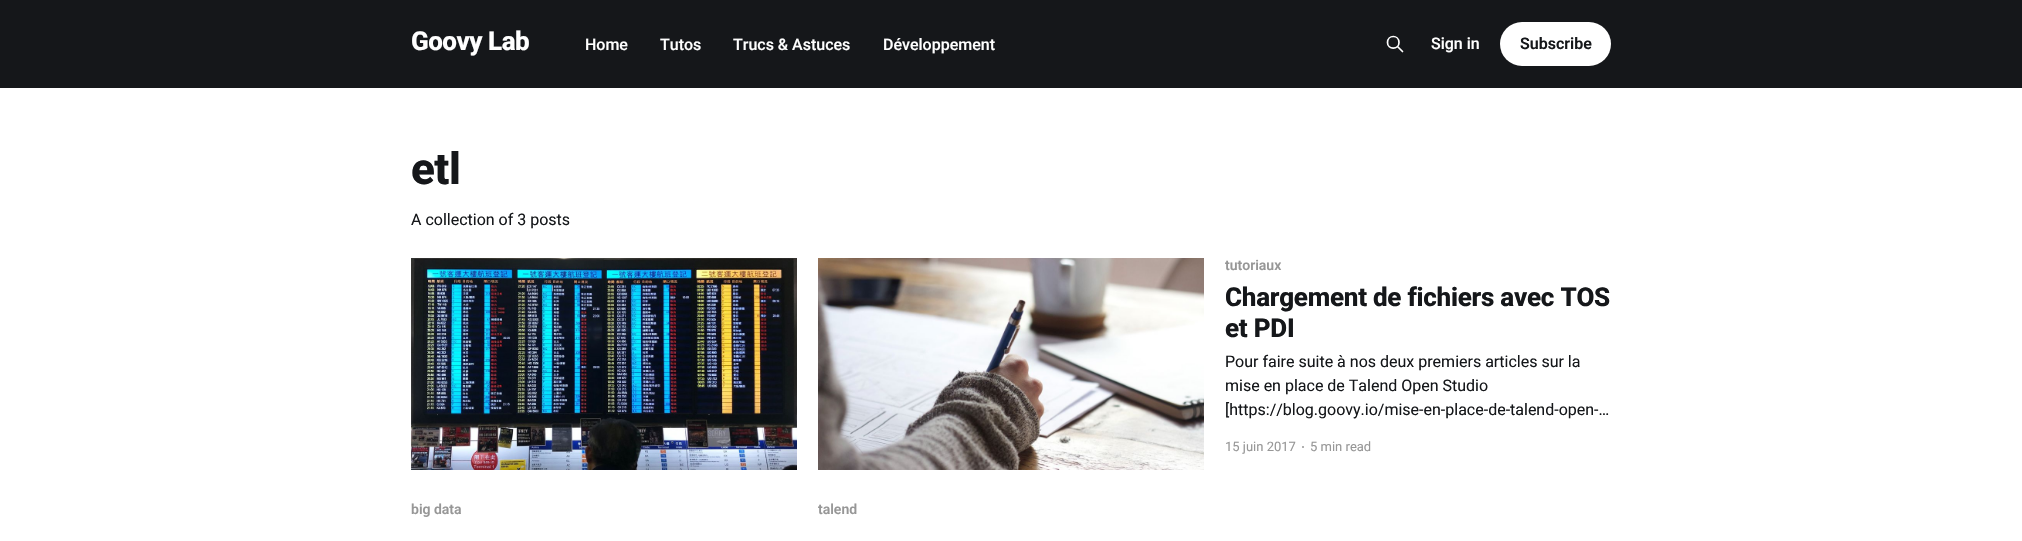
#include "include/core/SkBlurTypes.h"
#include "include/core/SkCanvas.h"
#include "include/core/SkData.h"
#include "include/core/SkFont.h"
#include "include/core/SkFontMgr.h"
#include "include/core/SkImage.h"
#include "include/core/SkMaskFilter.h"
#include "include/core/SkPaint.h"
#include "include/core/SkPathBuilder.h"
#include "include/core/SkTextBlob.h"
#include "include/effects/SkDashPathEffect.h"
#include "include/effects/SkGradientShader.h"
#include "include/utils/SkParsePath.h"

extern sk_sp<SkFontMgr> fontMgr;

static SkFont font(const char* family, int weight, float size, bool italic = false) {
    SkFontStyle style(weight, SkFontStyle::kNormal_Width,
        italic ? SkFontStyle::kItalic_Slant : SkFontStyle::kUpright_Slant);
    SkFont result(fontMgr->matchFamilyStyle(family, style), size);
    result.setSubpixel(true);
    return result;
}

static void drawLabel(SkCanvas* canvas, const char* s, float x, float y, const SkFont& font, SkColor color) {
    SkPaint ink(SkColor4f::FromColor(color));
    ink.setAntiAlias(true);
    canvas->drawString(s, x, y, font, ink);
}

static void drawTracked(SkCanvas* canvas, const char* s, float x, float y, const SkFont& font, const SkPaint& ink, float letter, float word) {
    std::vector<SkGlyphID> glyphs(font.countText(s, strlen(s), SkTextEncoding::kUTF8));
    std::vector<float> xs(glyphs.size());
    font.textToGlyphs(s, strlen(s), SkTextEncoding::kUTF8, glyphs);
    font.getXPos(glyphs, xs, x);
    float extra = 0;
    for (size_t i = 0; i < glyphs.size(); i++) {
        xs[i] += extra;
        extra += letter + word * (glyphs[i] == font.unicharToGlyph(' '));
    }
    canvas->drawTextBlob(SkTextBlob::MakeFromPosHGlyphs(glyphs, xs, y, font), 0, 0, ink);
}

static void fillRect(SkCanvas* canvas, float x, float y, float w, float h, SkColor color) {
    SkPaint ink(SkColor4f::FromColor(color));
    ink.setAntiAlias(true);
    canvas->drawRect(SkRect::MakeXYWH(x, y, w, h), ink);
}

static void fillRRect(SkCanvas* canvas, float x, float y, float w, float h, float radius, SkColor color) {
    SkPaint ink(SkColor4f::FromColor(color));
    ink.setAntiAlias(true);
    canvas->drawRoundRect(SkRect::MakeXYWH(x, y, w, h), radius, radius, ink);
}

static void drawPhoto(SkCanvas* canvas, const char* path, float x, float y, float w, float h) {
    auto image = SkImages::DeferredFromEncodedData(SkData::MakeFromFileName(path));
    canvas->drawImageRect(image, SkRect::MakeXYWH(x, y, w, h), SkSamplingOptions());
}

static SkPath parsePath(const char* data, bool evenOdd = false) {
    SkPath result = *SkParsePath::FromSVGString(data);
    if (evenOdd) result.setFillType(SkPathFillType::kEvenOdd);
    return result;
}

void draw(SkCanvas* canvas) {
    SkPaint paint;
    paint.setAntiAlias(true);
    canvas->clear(0xFFFFFFFF);
    fillRect(canvas, 0, 0, 2022, 88, 0xFF15171A);
    SkFont font1 = font("Roboto", 800, 26);
    paint.setColor(0xFFFFFFFF);
    drawTracked(canvas, "Goovy Lab", 411, 50, font1, paint, -0.5f, 0);
    SkFont font2 = font("Roboto", 500, 16);
    drawLabel(canvas, "Home", 585, 50, font2, 0xFFFFFFFF);
    drawLabel(canvas, "Tutos", 660, 50, font2, 0xFFFFFFFF);
    drawLabel(canvas, "Trucs & Astuces", 733, 50, font2, 0xFFFFFFFF);
    drawLabel(canvas, "Développement", 883, 50, font2, 0xFFFFFFFF);
    paint.setStroke(true);
    paint.setStrokeWidth(1.7f);
    paint.setStrokeCap(SkPaint::kRound_Cap);
    paint.setStrokeJoin(SkPaint::kRound_Join);
    canvas->drawPath(parsePath("M1402.5 51.5L1397.5 46.5M1399 42.5C1399 50 1387.5 50 1387.5 42.5C1387.5 34.5 1399 34.5 1399 42.5Z"), paint);
    drawLabel(canvas, "Sign in", 1431, 49, font2, 0xFFFFFFFF);
    fillRRect(canvas, 1500, 22, 111, 44, 22, 0xFFFFFFFF);
    SkFont font3 = font("Roboto", 600, 16);
    drawLabel(canvas, "Subscribe", 1520, 49, font3, 0xFF15171A);
    SkFont font4 = font("Roboto", 800, 44);
    paint.setStroke(false);
    paint.setColor(0xFF15171A);
    drawTracked(canvas, "etl", 411, 184, font4, paint, -0.5f, 0);
    SkFont font5 = font("Roboto", 400, 16);
    drawLabel(canvas, "A collection of 3 posts", 411, 225, font5, 0xFF15171A);
    SkFont font6 = font("Roboto", 600, 14);
    drawLabel(canvas, "tutoriaux", 1225, 270, font6, 0xFF979797);
    drawTracked(canvas, "Chargement de fichiers avec TOS", 1225, 306, font1, paint, -0.25f, 0);
    drawTracked(canvas, "et PDI", 1225, 337, font1, paint, -0.25f, 0);
    drawLabel(canvas, "Pour faire suite à nos deux premiers articles sur la", 1225, 367, font5, 0xFF15171A);
    drawLabel(canvas, "mise en place de Talend Open Studio", 1225, 391, font5, 0xFF15171A);
    drawLabel(canvas, "[https://blog.goovy.io/mise-en-place-de-talend-open-…", 1225, 415, font5, 0xFF15171A);
    SkFont font7 = font("Roboto", 400, 13);
    drawLabel(canvas, "15 juin 2017", 1225, 451, font7, 0xFF979797);
    paint.setColor(0xFF979797);
    canvas->drawCircle(1303, 447, 1, paint);
    drawLabel(canvas, "5 min read", 1310, 451, font7, 0xFF979797);
    drawPhoto(canvas, "assets/img1.png", 411, 258, 386, 212);
    drawLabel(canvas, "big data", 411, 514, font6, 0xFF979797);
    drawPhoto(canvas, "assets/img2.png", 818, 258, 386, 212);
    drawLabel(canvas, "talend", 818, 514, font6, 0xFF979797);
}
